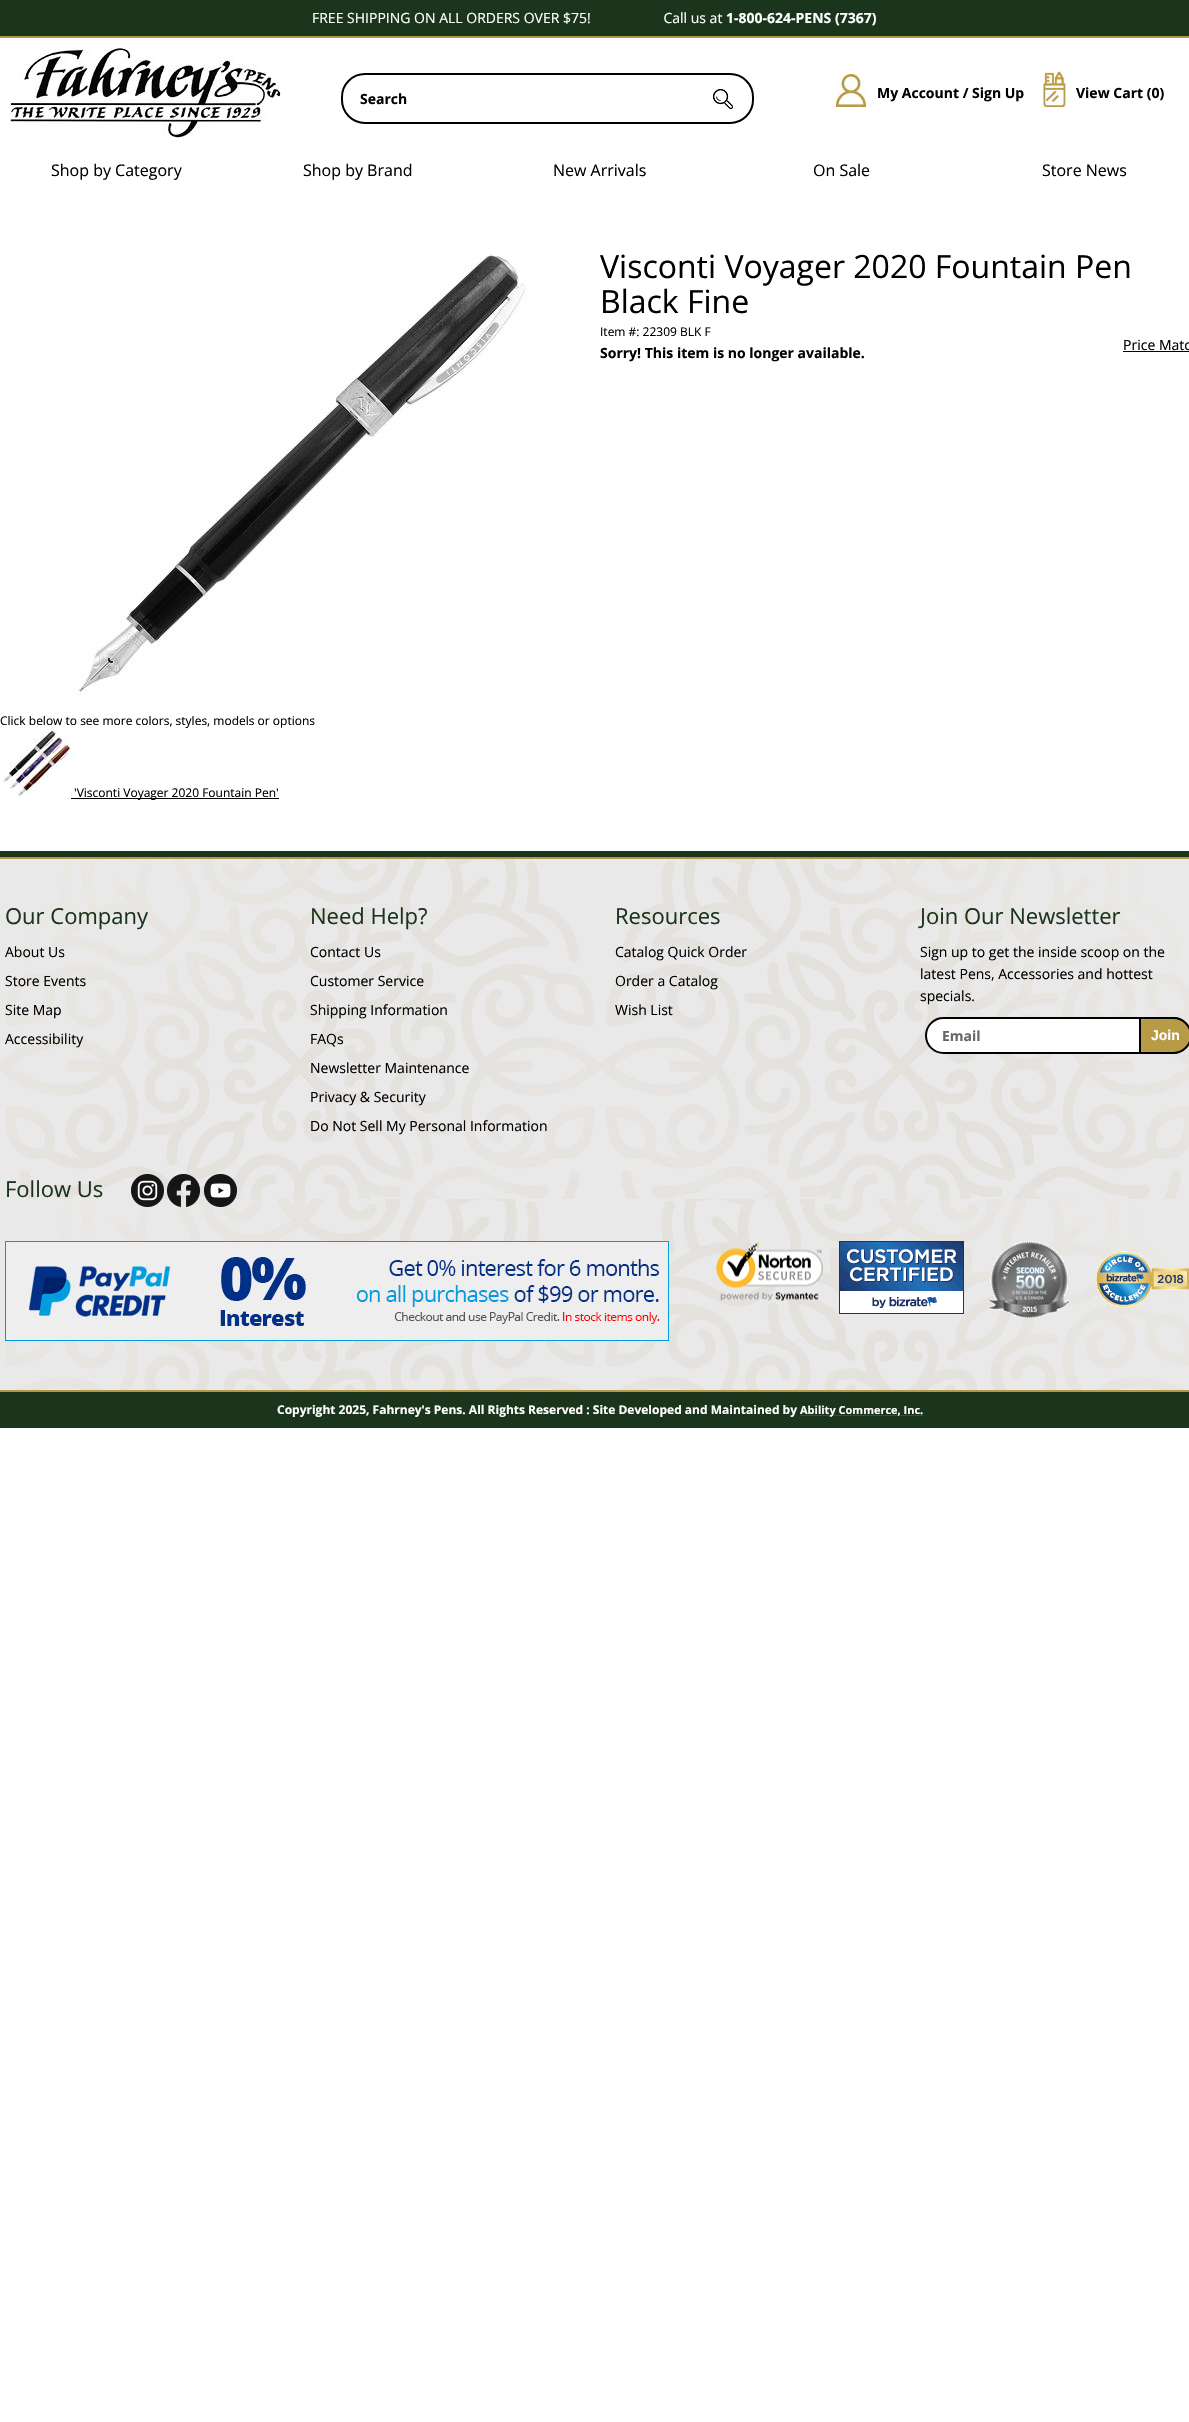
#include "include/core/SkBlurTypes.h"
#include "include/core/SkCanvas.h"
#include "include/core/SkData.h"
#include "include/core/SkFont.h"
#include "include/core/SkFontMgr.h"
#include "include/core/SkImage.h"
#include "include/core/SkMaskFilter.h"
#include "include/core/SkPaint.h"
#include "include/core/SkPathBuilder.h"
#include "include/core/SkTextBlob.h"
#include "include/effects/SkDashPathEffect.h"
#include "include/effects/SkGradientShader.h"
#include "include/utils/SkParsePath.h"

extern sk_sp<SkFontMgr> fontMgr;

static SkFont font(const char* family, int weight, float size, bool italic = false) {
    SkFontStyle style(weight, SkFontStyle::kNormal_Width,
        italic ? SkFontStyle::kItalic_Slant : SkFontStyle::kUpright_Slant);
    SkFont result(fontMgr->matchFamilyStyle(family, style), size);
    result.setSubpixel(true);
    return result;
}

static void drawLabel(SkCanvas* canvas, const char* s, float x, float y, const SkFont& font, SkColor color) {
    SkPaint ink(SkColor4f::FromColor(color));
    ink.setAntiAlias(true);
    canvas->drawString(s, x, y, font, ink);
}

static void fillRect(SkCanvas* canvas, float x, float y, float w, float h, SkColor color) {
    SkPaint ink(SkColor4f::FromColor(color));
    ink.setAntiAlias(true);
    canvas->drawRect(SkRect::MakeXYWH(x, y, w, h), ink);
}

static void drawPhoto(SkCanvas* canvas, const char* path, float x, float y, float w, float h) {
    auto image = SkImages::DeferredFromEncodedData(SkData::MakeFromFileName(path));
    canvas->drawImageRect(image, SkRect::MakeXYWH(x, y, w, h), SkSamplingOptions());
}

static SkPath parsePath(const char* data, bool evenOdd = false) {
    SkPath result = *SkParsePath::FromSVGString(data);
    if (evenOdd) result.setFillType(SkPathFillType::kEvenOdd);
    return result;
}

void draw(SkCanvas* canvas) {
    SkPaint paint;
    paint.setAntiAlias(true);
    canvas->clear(0xFFFFFFFF);
    fillRect(canvas, 0, 0, 1189, 36, 0xFF1B351D);
    fillRect(canvas, 0, 36, 1189, 2, 0xFFAF9645);
    SkFont font1 = font("Open Sans", 400, 14);
    drawLabel(canvas, "FREE SHIPPING ON ALL ORDERS OVER $75!                    Call us at", 312, 23, font1, 0xFFFFFFFF);
    SkFont font2 = font("Open Sans", 700, 14);
    drawLabel(canvas, "1-800-624-PENS (7367)", 726, 23, font2, 0xFFFFFFFF);
    drawPhoto(canvas, "assets/img1.png", 10, 48, 271, 90);
    paint.setStroke(true);
    paint.setStrokeWidth(2);
    paint.setColor(0xFF000000);
    canvas->drawRoundRect(SkRect::MakeXYWH(342, 74, 411, 49), 23, 23, paint);
    drawLabel(canvas, "Search", 360, 104, font2, 0xFF000000);
    drawPhoto(canvas, "assets/img2.png", 713, 89, 20, 20);
    drawPhoto(canvas, "assets/img3.png", 836, 74, 31, 34);
    drawLabel(canvas, "My Account / Sign Up", 877, 98, font2, 0xFF000000);
    drawPhoto(canvas, "assets/img4.png", 1043, 71, 23, 37);
    drawLabel(canvas, "View Cart (0)", 1076, 98, font2, 0xFF000000);
    SkFont font3 = font("Open Sans", 400, 16);
    drawLabel(canvas, "Shop by Category", 51, 176, font3, 0xFF000000);
    drawLabel(canvas, "Shop by Brand", 303, 176, font3, 0xFF000000);
    drawLabel(canvas, "New Arrivals", 553, 176, font3, 0xFF000000);
    drawLabel(canvas, "On Sale", 813, 176, font3, 0xFF000000);
    drawLabel(canvas, "Store News", 1042, 176, font3, 0xFF000000);
    SkFont font4 = font("Open Sans", 400, 32);
    drawLabel(canvas, "Visconti Voyager 2020 Fountain Pen", 600, 278, font4, 0xFF000000);
    drawLabel(canvas, "Black Fine", 600, 313, font4, 0xFF000000);
    SkFont font5 = font("Open Sans", 400, 12);
    drawLabel(canvas, "Item #: 22309 BLK F", 600, 336, font5, 0xFF000000);
    drawLabel(canvas, "Price Matc", 1123, 350, font1, 0xFF000000);
    fillRect(canvas, 1123, 351, 66, 1, 0xFF000000);
    drawLabel(canvas, "Sorry! This item is no longer available.", 600, 358, font2, 0xFF000000);
    drawPhoto(canvas, "assets/img5.png", 73, 254, 455, 442);
    drawLabel(canvas, "Click below to see more colors, styles, models or options", 0, 725, font5, 0xFF000000);
    drawPhoto(canvas, "assets/img6.png", 2, 730, 69, 67);
    fillRect(canvas, 71, 798, 208, 1, 0xFF000000);
    drawLabel(canvas, "'Visconti Voyager 2020 Fountain Pen'", 74, 797, font5, 0xFF000000);
    fillRect(canvas, 0, 851, 1189, 6, 0xFF1B351D);
    drawPhoto(canvas, "assets/img7.png", 0, 859, 1189, 531);
    fillRect(canvas, 0, 857, 1189, 2, 0xFFB39946);
    SkFont font6 = font("Open Sans", 400, 22);
    drawLabel(canvas, "Our Company", 5, 924, font6, 0xFF1B351D);
    drawLabel(canvas, "About Us", 5, 957, font1, 0xFF000000);
    drawLabel(canvas, "Store Events", 5, 986, font1, 0xFF000000);
    drawLabel(canvas, "Site Map", 5, 1015, font1, 0xFF000000);
    drawLabel(canvas, "Accessibility", 5, 1044, font1, 0xFF000000);
    drawLabel(canvas, "Need Help?", 310, 924, font6, 0xFF1B351D);
    drawLabel(canvas, "Contact Us", 310, 957, font1, 0xFF000000);
    drawLabel(canvas, "Customer Service", 310, 986, font1, 0xFF000000);
    drawLabel(canvas, "Shipping Information", 310, 1015, font1, 0xFF000000);
    drawLabel(canvas, "FAQs", 310, 1044, font1, 0xFF000000);
    drawLabel(canvas, "Newsletter Maintenance", 310, 1073, font1, 0xFF000000);
    drawLabel(canvas, "Privacy & Security", 310, 1102, font1, 0xFF000000);
    drawLabel(canvas, "Do Not Sell My Personal Information", 310, 1131, font1, 0xFF000000);
    drawLabel(canvas, "Resources", 615, 924, font6, 0xFF1B351D);
    drawLabel(canvas, "Catalog Quick Order", 615, 957, font1, 0xFF000000);
    drawLabel(canvas, "Order a Catalog", 615, 986, font1, 0xFF000000);
    drawLabel(canvas, "Wish List", 615, 1015, font1, 0xFF000000);
    drawLabel(canvas, "Join Our Newsletter", 920, 924, font6, 0xFF1B351D);
    drawLabel(canvas, "Sign up to get the inside scoop on the", 920, 957, font1, 0xFF000000);
    drawLabel(canvas, "latest Pens, Accessories and hottest", 920, 979, font1, 0xFF000000);
    drawLabel(canvas, "specials.", 920, 1001, font1, 0xFF000000);
    paint.setStroke(false);
    paint.setColor(0xFFFFFFFF);
    canvas->drawRoundRect(SkRect::MakeXYWH(926, 1018, 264, 35), 17.5f, 17.5f, paint);
    paint.setStroke(true);
    paint.setColor(0xFF000000);
    canvas->drawRoundRect(SkRect::MakeXYWH(926, 1018, 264, 35), 17.5f, 17.5f, paint);
    drawLabel(canvas, "Email", 942, 1041, font2, 0xFF666666);
    paint.setStroke(false);
    paint.setColor(0xFFB79B47);
    canvas->drawPath(parsePath("M1140 1018H1173.5C1183 1018 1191 1026 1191 1035.5C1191 1045 1183 1053 1173.5 1053H1140Z"), paint);
    paint.setStroke(true);
    paint.setColor(0xFF000000);
    canvas->drawPath(parsePath("M1140 1018H1173.5C1183 1018 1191 1026 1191 1035.5C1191 1045 1183 1053 1173.5 1053H1140Z"), paint);
    SkFont font7 = font("Liberation Sans", 700, 14);
    drawLabel(canvas, "Join", 1151, 1040, font7, 0xFFFFFFFF);
    drawLabel(canvas, "Follow Us", 5, 1197, font6, 0xFF1B351D);
    drawPhoto(canvas, "assets/img8.png", 131, 1174, 33, 33);
    drawPhoto(canvas, "assets/img9.png", 167, 1174, 33, 33);
    drawPhoto(canvas, "assets/img10.png", 204, 1174, 33, 33);
    drawPhoto(canvas, "assets/img11.png", 5, 1241, 664, 100);
    drawPhoto(canvas, "assets/img12.png", 716, 1242, 107, 59);
    drawPhoto(canvas, "assets/img13.png", 839, 1241, 125, 73);
    drawPhoto(canvas, "assets/img14.png", 989, 1241, 80, 77);
    drawPhoto(canvas, "assets/img15.png", 1096, 1251, 93, 56);
    fillRect(canvas, 0, 1392, 1189, 36, 0xFF1B351D);
    fillRect(canvas, 0, 1390, 1189, 2, 0xFFB39946);
    SkFont font8 = font("Open Sans", 700, 12);
    drawLabel(canvas, "Copyright 2025, Fahrney's Pens. All Rights Reserved : Site Developed and Maintained by", 277, 1414, font8, 0xFFFFFFFF);
    fillRect(canvas, 800, 1415, 123, 1, 0xFF0055A5);
    SkFont font9 = font("Open Sans", 700, 11);
    drawLabel(canvas, "Ability Commerce, Inc.", 800, 1414, font9, 0xFFFFFFFF);
}
